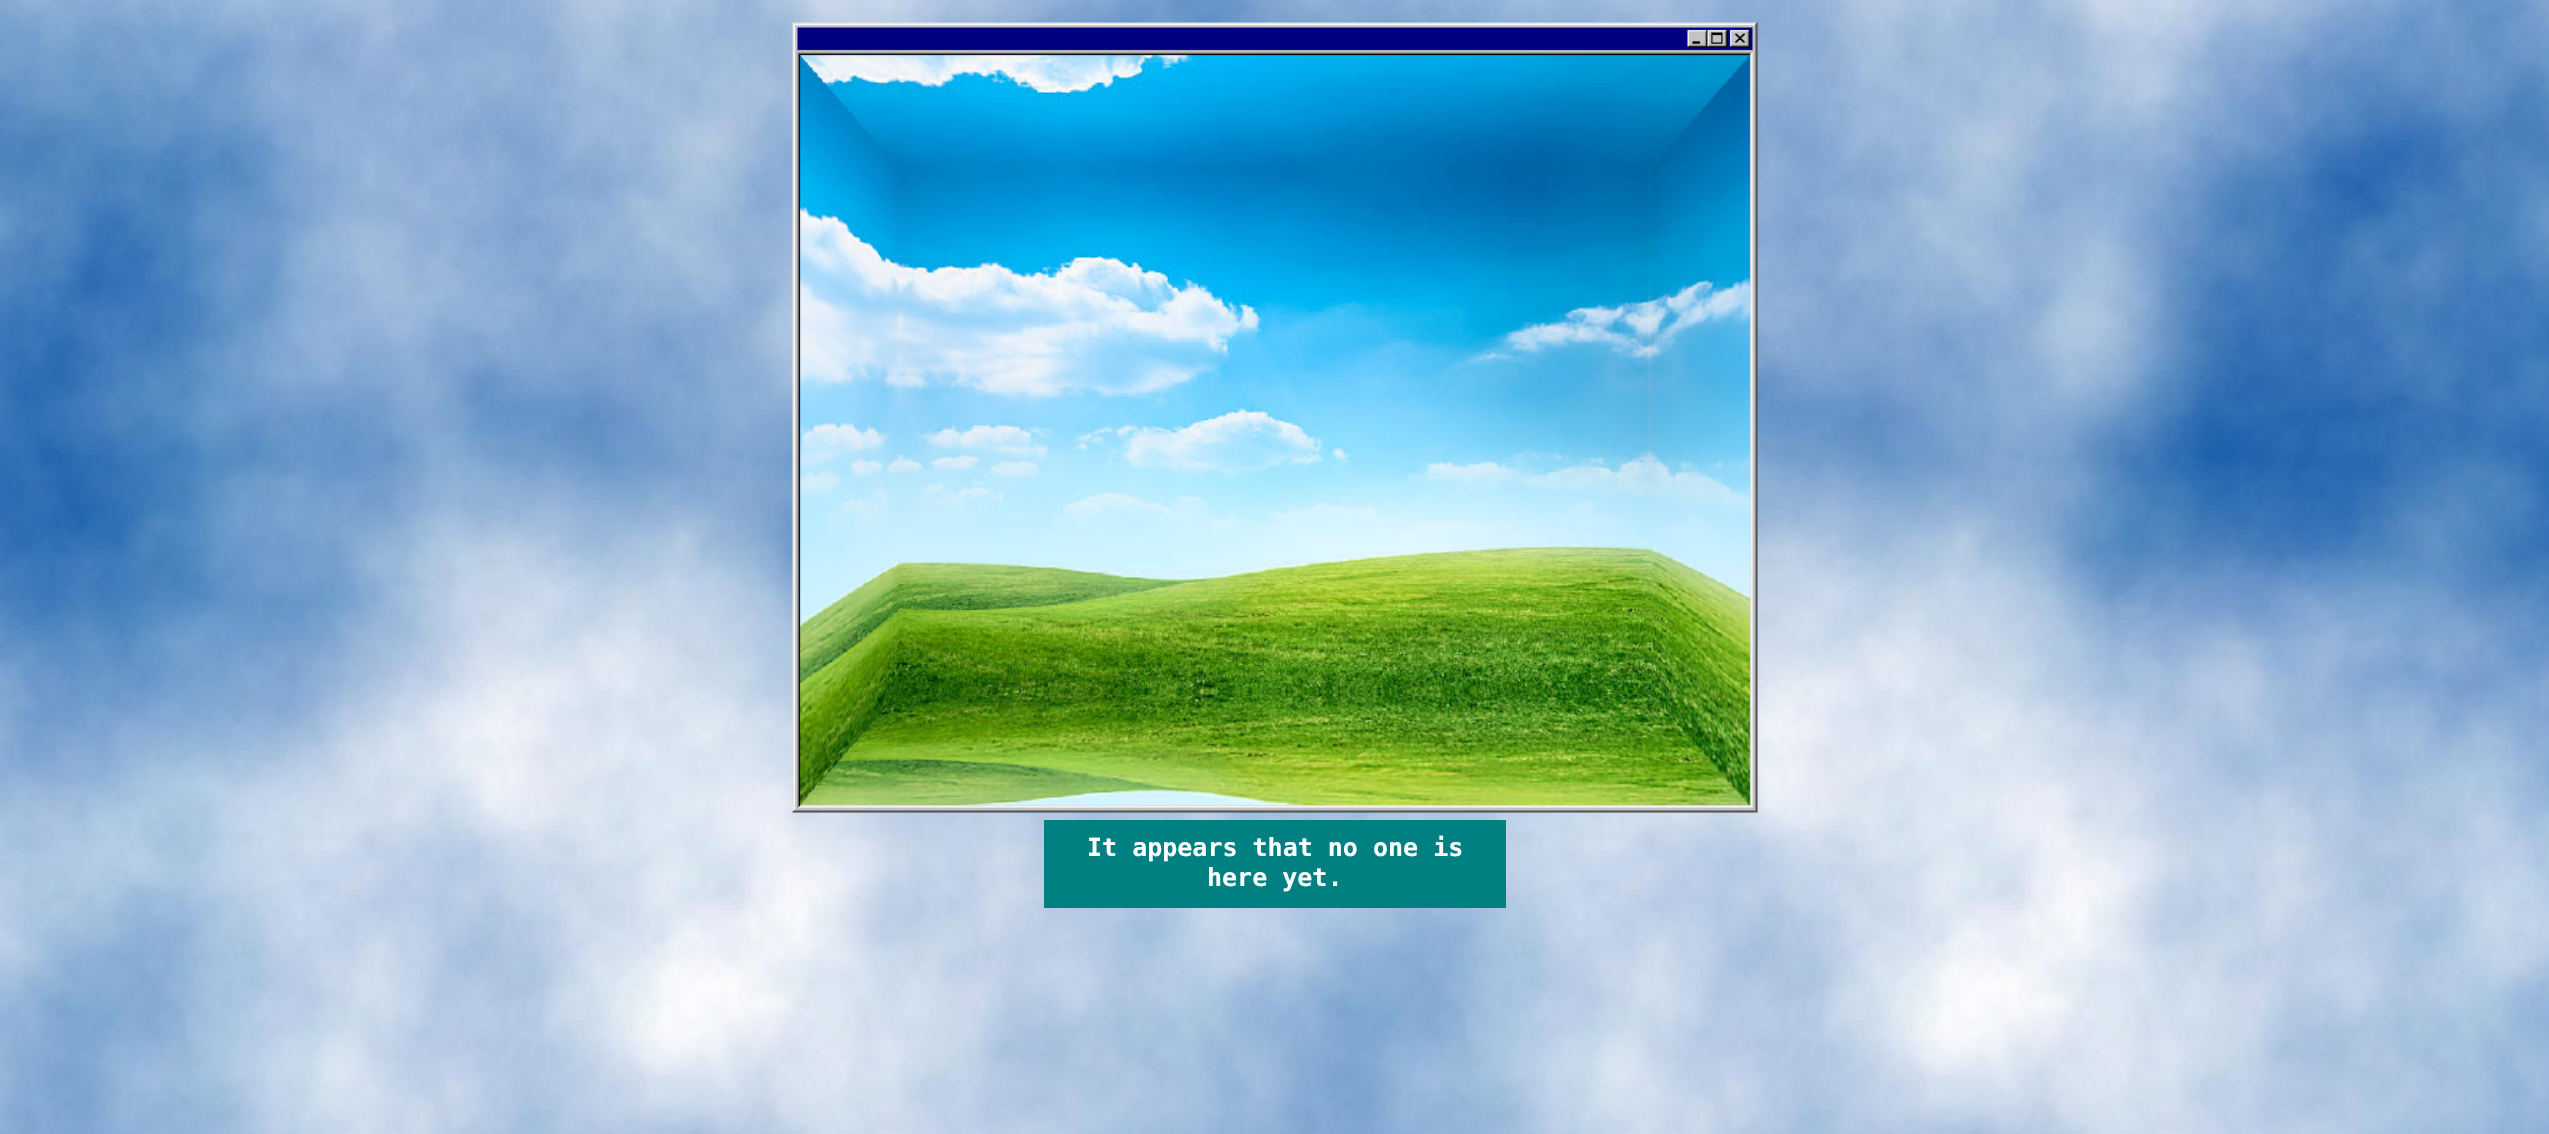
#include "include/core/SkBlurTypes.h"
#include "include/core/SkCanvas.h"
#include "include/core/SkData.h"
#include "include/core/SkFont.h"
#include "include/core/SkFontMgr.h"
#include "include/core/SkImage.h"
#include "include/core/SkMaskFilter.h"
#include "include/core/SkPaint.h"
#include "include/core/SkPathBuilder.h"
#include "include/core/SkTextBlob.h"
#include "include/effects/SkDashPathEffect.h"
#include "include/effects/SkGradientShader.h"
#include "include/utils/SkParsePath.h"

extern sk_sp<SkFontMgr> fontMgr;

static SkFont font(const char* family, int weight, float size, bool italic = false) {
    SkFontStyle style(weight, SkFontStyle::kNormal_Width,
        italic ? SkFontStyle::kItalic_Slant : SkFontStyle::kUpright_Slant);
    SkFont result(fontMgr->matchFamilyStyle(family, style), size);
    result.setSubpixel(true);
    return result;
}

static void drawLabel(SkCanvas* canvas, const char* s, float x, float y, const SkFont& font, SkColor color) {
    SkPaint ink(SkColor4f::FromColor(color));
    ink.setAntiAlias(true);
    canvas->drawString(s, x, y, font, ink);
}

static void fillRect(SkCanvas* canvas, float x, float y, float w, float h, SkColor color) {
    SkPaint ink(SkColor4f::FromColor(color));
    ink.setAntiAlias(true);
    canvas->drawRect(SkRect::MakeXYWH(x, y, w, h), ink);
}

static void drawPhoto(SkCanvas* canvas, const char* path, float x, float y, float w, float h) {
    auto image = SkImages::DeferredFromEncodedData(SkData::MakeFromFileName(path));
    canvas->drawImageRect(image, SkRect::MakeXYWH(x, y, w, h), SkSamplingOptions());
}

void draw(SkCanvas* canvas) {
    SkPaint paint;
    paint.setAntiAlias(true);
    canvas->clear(0xFFFFFFFF);
    drawPhoto(canvas, "assets/img1.png", 0, 0, 2549, 1134);
    drawPhoto(canvas, "assets/img2.png", 792, 22, 966, 791);
    fillRect(canvas, 1044, 820, 462, 88, 0xFF008080);
    SkFont font1 = font("DejaVu Sans Mono", 700, 25);
    drawLabel(canvas, "It appears that no one is", 1087, 856, font1, 0xFFFFFFFF);
    drawLabel(canvas, "here yet.", 1207, 886, font1, 0xFFFFFFFF);
}
